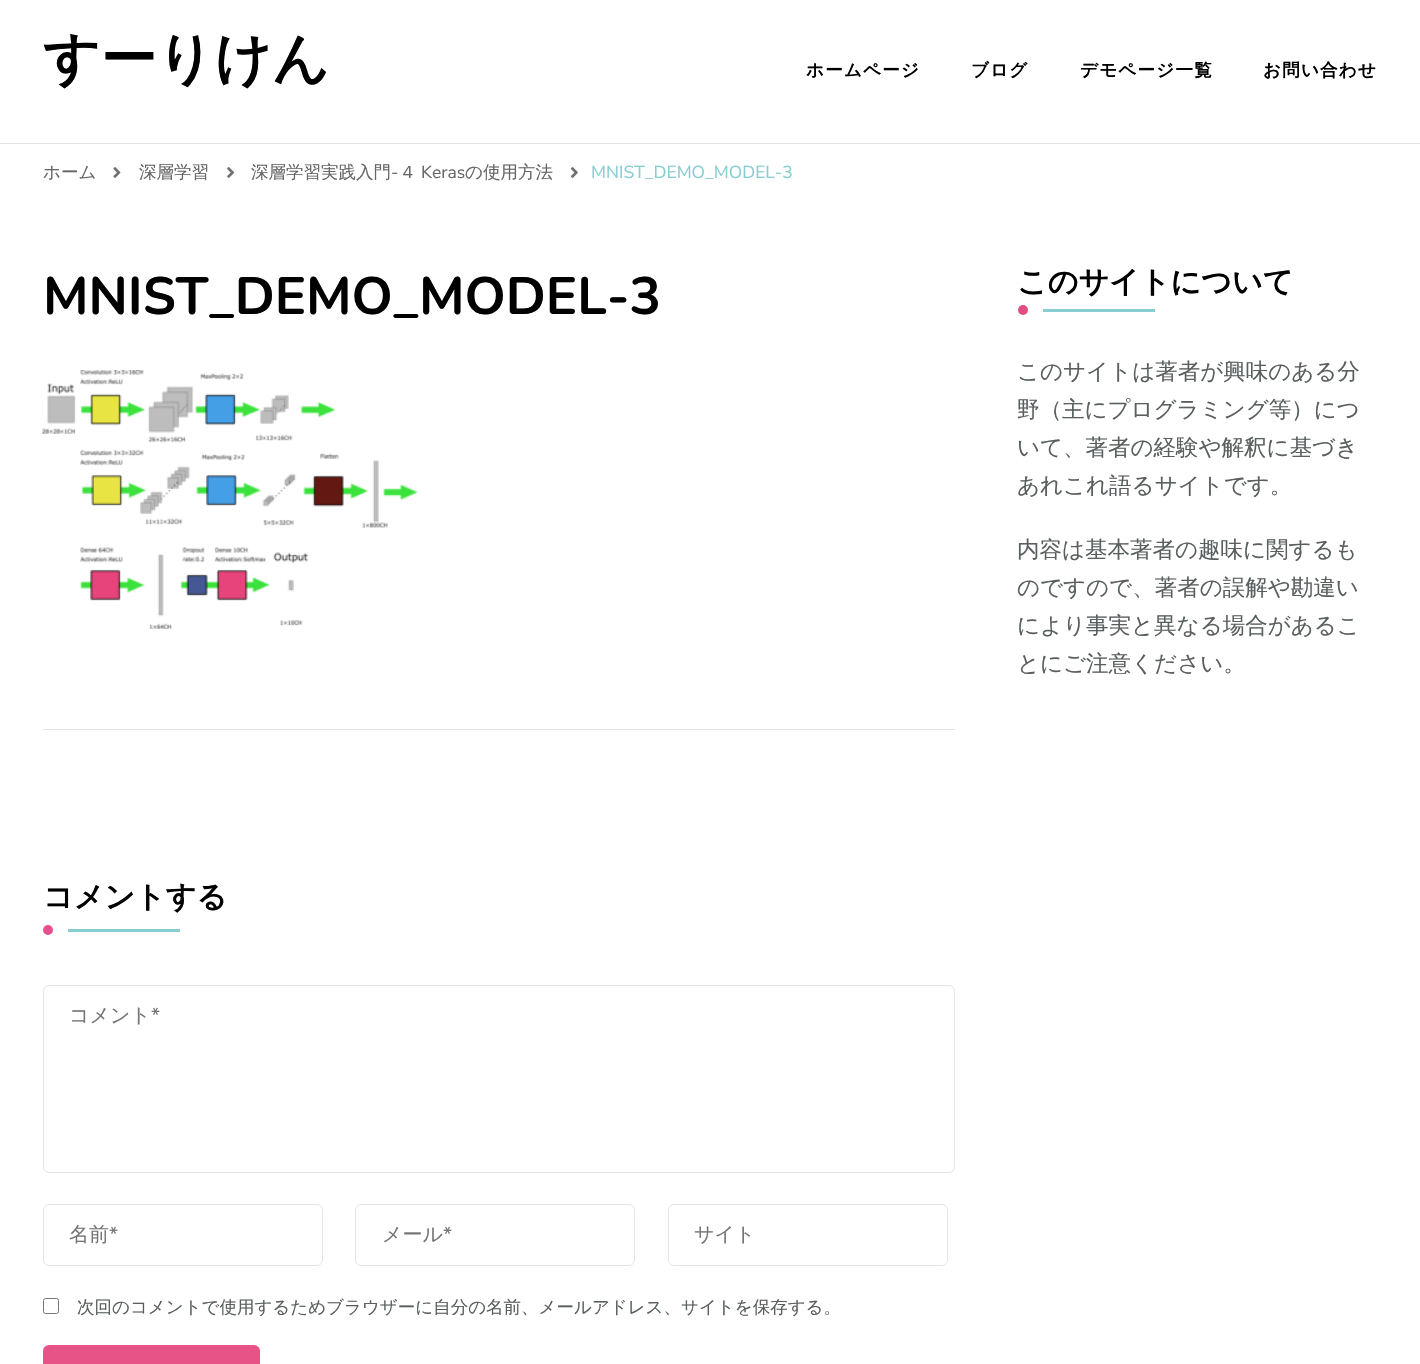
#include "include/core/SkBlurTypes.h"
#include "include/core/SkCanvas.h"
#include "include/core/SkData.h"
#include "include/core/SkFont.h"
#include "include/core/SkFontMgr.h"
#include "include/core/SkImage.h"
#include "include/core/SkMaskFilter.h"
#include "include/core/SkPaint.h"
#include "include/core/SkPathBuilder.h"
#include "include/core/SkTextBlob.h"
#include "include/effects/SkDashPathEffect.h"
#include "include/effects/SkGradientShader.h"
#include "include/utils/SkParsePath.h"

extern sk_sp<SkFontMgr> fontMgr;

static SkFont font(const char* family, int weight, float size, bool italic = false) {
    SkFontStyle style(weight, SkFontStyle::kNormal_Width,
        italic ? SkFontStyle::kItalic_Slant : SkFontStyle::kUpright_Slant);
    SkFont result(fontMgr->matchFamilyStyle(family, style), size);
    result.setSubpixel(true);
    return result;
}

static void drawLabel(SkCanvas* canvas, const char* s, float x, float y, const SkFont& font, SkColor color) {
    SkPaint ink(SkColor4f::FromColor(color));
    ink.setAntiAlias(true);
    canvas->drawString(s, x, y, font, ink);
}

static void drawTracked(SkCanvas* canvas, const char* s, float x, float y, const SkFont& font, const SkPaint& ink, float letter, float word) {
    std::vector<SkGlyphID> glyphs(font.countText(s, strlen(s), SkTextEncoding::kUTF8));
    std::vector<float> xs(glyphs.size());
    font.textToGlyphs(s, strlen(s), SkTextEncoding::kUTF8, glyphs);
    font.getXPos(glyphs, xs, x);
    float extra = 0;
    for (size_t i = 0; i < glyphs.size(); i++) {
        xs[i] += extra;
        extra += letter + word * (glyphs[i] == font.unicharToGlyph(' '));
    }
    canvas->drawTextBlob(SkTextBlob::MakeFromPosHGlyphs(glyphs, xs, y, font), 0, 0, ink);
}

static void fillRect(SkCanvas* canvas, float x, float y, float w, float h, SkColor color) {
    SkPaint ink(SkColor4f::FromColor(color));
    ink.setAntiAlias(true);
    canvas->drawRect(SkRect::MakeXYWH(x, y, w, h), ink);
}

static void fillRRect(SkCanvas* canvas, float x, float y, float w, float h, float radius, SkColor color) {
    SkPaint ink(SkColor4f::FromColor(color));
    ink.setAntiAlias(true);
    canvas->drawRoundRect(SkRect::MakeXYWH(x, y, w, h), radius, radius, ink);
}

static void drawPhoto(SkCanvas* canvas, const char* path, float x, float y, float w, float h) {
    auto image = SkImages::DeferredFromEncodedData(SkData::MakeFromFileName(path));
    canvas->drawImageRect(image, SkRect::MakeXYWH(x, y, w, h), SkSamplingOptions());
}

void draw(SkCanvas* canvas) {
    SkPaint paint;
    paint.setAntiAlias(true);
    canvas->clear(0xFFFFFFFF);
    fillRect(canvas, 0, 143, 1420, 1, 0xFFE5E5E5);
    SkFont font1 = font("WenQuanYi Zen Hei", 700, 56.25f);
    drawLabel(canvas, "すーりけん", 43, 78, font1, 0xFF000000);
    SkFont font2 = font("WenQuanYi Zen Hei", 700, 17.5f);
    paint.setColor(0xFF000000);
    drawTracked(canvas, "ホームページ", 806, 76, font2, paint, 1.25f, 0);
    drawTracked(canvas, "ブログ", 971, 76, font2, paint, 1.25f, 0);
    drawTracked(canvas, "デモページ一覧", 1080, 76, font2, paint, 1.25f, 0);
    drawTracked(canvas, "お問い合わせ", 1263, 76, font2, paint, 1.25f, 0);
    SkFont font3 = font("WenQuanYi Zen Hei", 500, 17.5f);
    drawLabel(canvas, "ホーム", 43, 178, font3, 0xFF666666);
    drawPhoto(canvas, "assets/img1.png", 113, 167, 8, 11);
    drawLabel(canvas, "深層学習", 139, 178, font3, 0xFF666666);
    drawPhoto(canvas, "assets/img2.png", 227, 167, 8, 11);
    drawLabel(canvas, "深層学習実践入門", 251, 178, font3, 0xFF666666);
    SkFont font4 = font("Nunito Sans", 400, 17.5f);
    drawLabel(canvas, "-", 391, 178, font4, 0xFF666666);
    drawLabel(canvas, "４", 399, 178, font3, 0xFF666666);
    drawLabel(canvas, "Keras", 421, 178, font4, 0xFF666666);
    drawLabel(canvas, "の使用方法", 465, 178, font3, 0xFF666666);
    drawPhoto(canvas, "assets/img3.png", 570, 167, 8, 11);
    drawLabel(canvas, "MNIST_DEMO_MODEL-3", 591, 178, font4, 0xFF88CED0);
    SkFont font5 = font("Nunito", 700, 52.5f);
    drawLabel(canvas, "MNIST_DEMO_MODEL-3", 43, 314, font5, 0xFF000000);
    drawPhoto(canvas, "assets/img4.png", 42, 370, 376, 259);
    fillRect(canvas, 43, 729, 912, 1, 0xFFE5E5E5);
    SkFont font6 = font("WenQuanYi Zen Hei", 700, 30);
    drawLabel(canvas, "コメントする", 43, 907, font6, 0xFF000000);
    paint.setColor(0xFFE8508D);
    canvas->drawCircle(48, 930, 5, paint);
    fillRect(canvas, 68, 929, 112, 3, 0xFF88CED0);
    paint.setStroke(true);
    paint.setStrokeWidth(1);
    paint.setColor(0xFFE5E5E5);
    canvas->drawRoundRect(SkRect::MakeXYWH(43.5f, 985.5f, 911, 187), 5.5f, 5.5f, paint);
    SkFont font7 = font("WenQuanYi Zen Hei", 500, 20);
    drawLabel(canvas, "コメント", 69, 1022, font7, 0xFF757575);
    SkFont font8 = font("Nunito Sans", 400, 20);
    drawLabel(canvas, "*", 151, 1022, font8, 0xFF757575);
    canvas->drawRoundRect(SkRect::MakeXYWH(43.5f, 1204.5f, 279, 61), 5.5f, 5.5f, paint);
    drawLabel(canvas, "名前", 69, 1241, font7, 0xFF757575);
    drawLabel(canvas, "*", 109, 1241, font8, 0xFF757575);
    canvas->drawRoundRect(SkRect::MakeXYWH(355.5f, 1204.5f, 279, 61), 5.5f, 5.5f, paint);
    drawLabel(canvas, "メール", 382, 1241, font7, 0xFF757575);
    drawLabel(canvas, "*", 443, 1241, font8, 0xFF757575);
    canvas->drawRoundRect(SkRect::MakeXYWH(668.5f, 1204.5f, 279, 61), 5.5f, 5.5f, paint);
    drawLabel(canvas, "サイト", 694, 1241, font7, 0xFF757575);
    paint.setColor(0xFF767676);
    canvas->drawRoundRect(SkRect::MakeXYWH(43.5f, 1298.5f, 15, 15), 2, 2, paint);
    drawLabel(canvas, "次回のコメントで使用するためブラウザーに自分の名前、メールアドレス、サイトを保存する。", 77, 1313, font3, 0xFF595F5F);
    fillRRect(canvas, 43, 1345, 217, 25, 6, 0xFFE75387);
    drawLabel(canvas, "このサイトについて", 1017, 292, font6, 0xFF000000);
    paint.setStroke(false);
    paint.setColor(0xFFE24E82);
    canvas->drawCircle(1023, 310, 5, paint);
    fillRect(canvas, 1043, 309, 112, 3, 0xFF88CED0);
    SkFont font9 = font("WenQuanYi Zen Hei", 500, 22.5f);
    drawLabel(canvas, "このサイトは著者が興味のある分", 1017, 379, font9, 0xFF595F5F);
    drawLabel(canvas, "野（主にプログラミング等）につ", 1017, 417, font9, 0xFF595F5F);
    drawLabel(canvas, "いて、著者の経験や解釈に基づき", 1017, 455, font9, 0xFF595F5F);
    drawLabel(canvas, "あれこれ語るサイトです。", 1017, 493, font9, 0xFF595F5F);
    drawLabel(canvas, "内容は基本著者の趣味に関するも", 1017, 557, font9, 0xFF595F5F);
    drawLabel(canvas, "のですので、著者の誤解や勘違い", 1017, 595, font9, 0xFF595F5F);
    drawLabel(canvas, "により事実と異なる場合があるこ", 1017, 633, font9, 0xFF595F5F);
    drawLabel(canvas, "とにご注意ください。", 1017, 671, font9, 0xFF595F5F);
}
